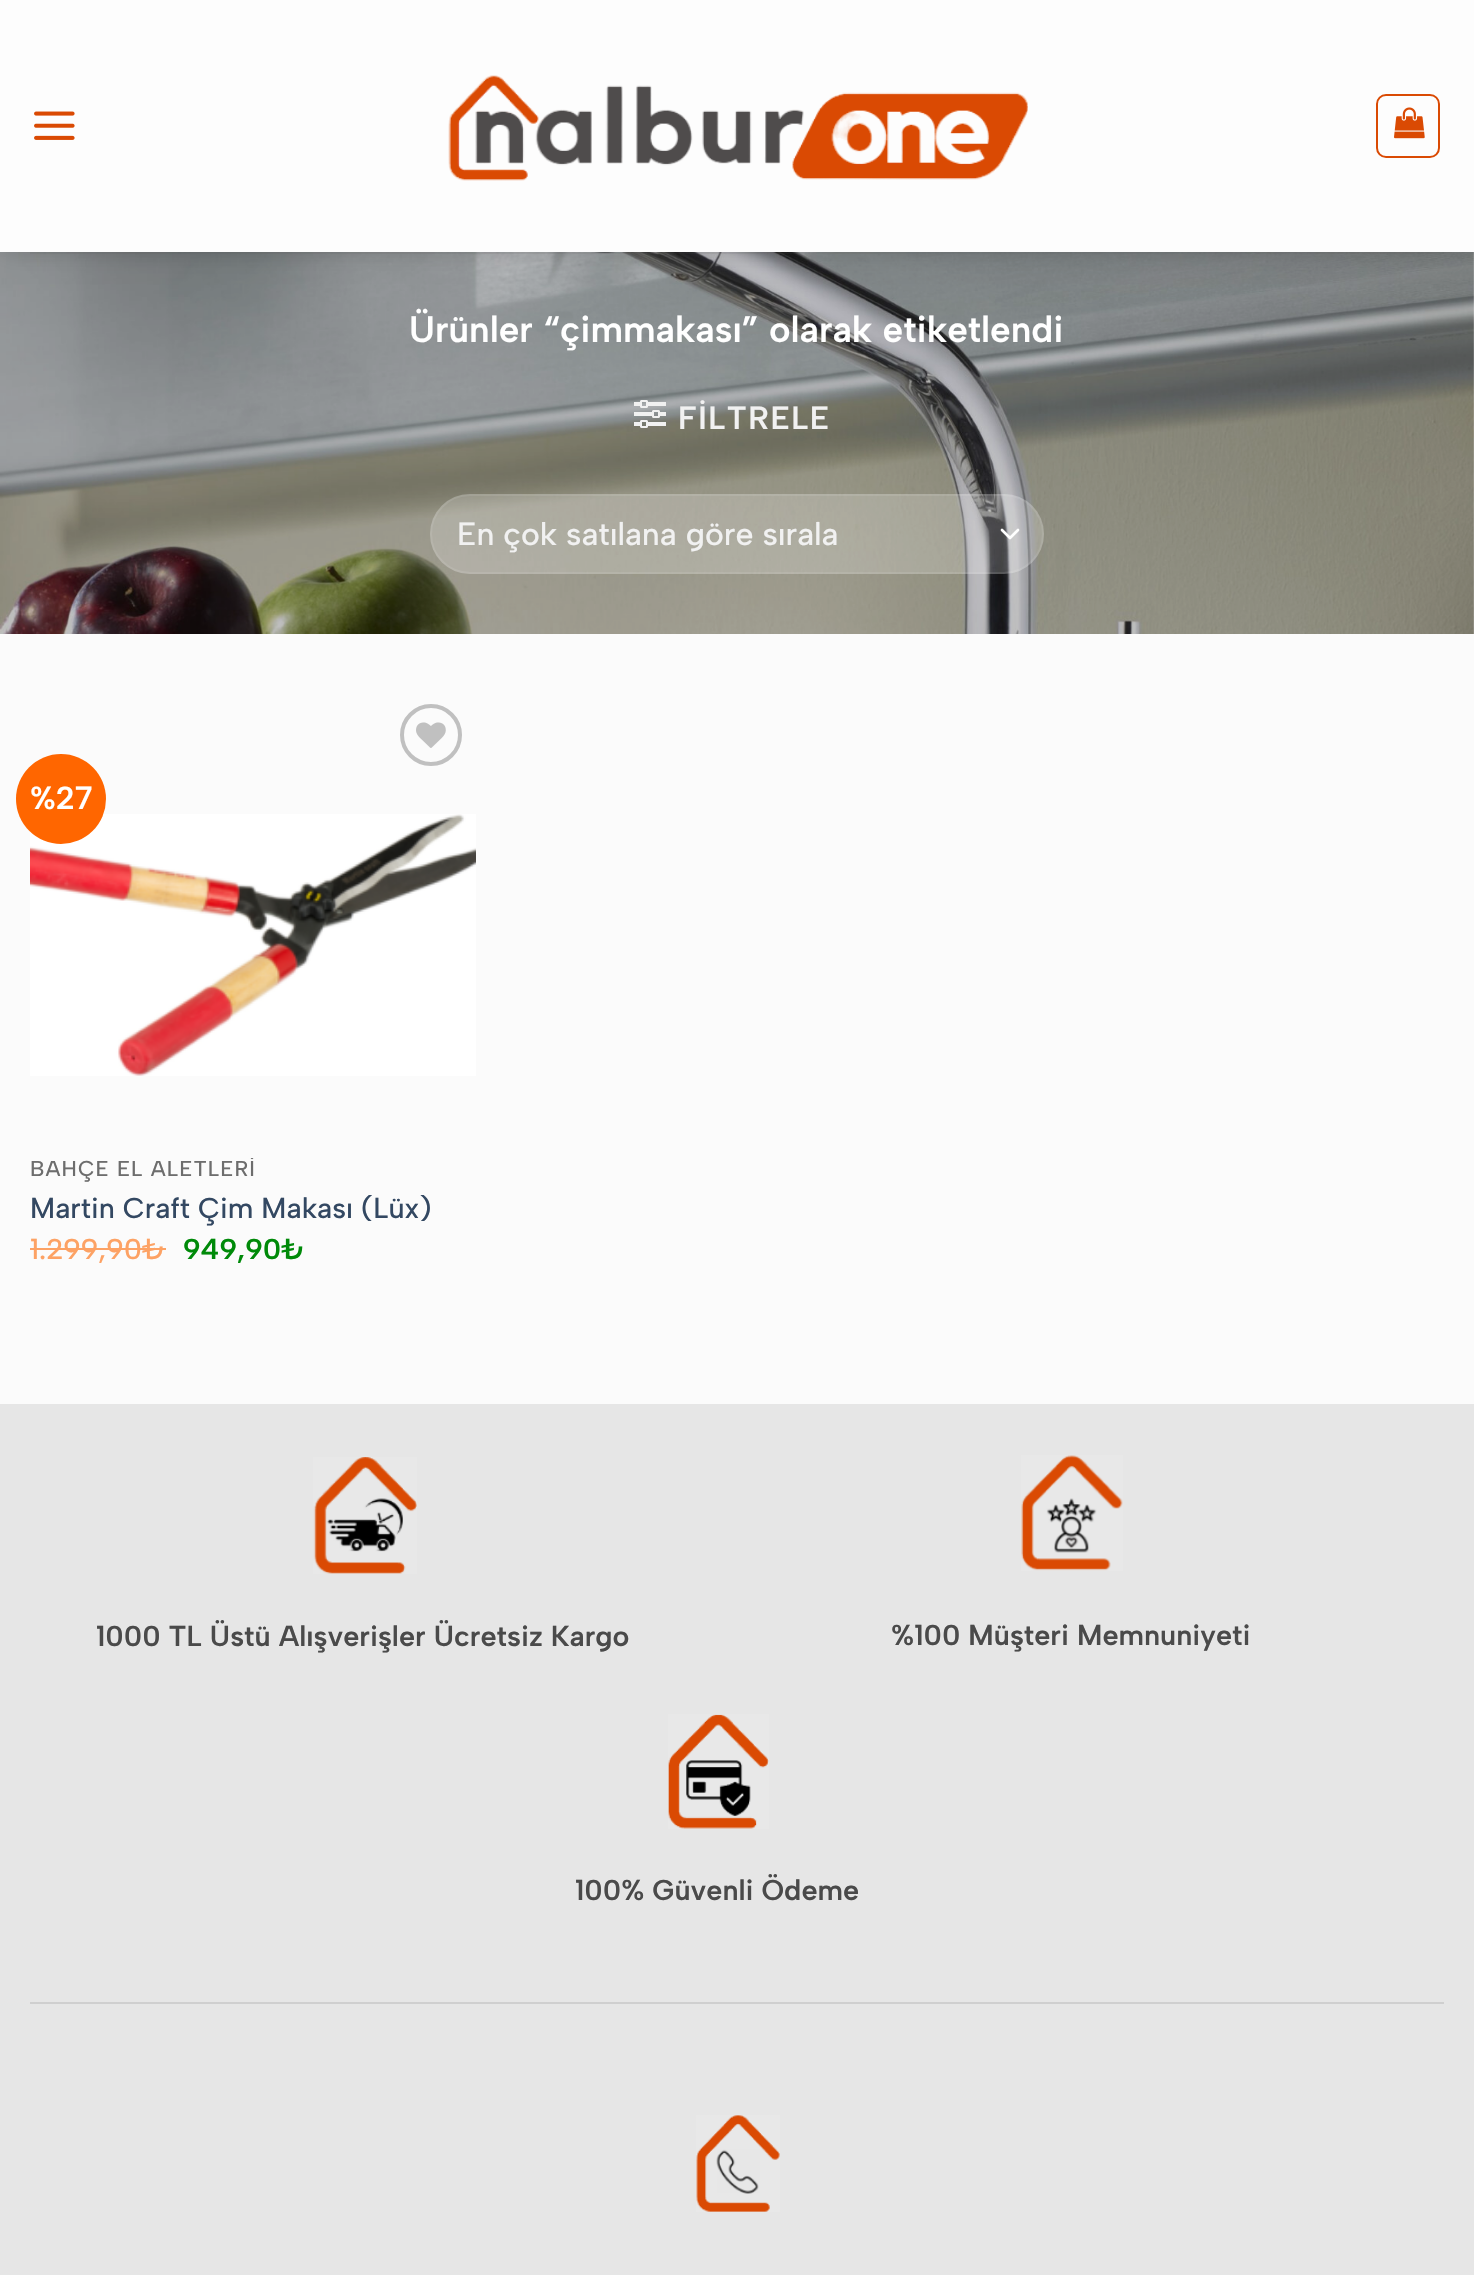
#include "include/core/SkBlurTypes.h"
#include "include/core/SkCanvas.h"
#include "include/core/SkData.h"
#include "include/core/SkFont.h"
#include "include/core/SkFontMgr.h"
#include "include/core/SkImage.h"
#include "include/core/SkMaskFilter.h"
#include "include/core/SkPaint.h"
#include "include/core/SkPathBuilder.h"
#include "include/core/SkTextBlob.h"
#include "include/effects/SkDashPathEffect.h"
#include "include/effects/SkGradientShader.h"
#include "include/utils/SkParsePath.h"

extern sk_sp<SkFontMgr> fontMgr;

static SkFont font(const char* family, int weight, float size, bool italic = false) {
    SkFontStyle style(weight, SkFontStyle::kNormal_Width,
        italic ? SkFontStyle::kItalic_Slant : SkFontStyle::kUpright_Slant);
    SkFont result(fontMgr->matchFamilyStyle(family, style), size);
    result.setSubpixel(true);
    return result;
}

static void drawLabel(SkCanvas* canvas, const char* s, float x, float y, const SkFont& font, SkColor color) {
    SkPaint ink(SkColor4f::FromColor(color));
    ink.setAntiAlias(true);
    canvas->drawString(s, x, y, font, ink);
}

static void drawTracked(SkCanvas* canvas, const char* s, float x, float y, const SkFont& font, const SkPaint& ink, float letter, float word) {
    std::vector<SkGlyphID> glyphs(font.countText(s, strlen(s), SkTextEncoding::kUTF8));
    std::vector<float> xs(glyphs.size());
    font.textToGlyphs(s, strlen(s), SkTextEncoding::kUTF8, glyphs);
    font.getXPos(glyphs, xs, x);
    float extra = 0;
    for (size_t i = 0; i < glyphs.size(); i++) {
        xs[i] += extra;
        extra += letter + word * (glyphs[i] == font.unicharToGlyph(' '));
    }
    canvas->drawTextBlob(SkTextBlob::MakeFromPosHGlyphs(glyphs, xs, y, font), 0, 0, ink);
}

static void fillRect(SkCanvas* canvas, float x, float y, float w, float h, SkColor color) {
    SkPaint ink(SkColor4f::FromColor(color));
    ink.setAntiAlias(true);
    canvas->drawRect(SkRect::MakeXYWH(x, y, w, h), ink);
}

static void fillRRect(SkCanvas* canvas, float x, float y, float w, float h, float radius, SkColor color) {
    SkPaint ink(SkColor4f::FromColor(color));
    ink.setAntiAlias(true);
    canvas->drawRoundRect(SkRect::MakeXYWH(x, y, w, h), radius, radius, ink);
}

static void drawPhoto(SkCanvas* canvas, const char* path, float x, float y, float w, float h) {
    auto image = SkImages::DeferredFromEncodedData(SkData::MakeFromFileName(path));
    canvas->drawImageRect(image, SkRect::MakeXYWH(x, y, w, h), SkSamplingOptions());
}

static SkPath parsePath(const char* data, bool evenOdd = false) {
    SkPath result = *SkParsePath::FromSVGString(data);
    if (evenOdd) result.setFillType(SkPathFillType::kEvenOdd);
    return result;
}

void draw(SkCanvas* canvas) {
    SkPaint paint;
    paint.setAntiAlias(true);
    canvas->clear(0xFFE6E6E6);
    drawPhoto(canvas, "assets/img4.png", 0, 252, 1474, 382);
    paint.setColor(0x26000000);
    paint.setMaskFilter(SkMaskFilter::MakeBlur(kNormal_SkBlurStyle, 10));
    canvas->drawRect(SkRect::MakeXYWH(2, 2, 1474, 252), paint);
    paint.setMaskFilter(nullptr);
    fillRect(canvas, 0, 0, 1474, 252, 0xFFFDFDFD);
    drawPhoto(canvas, "assets/img1.png", 34, 111, 41, 29);
    drawPhoto(canvas, "assets/img2.png", 448, 75, 580, 106);
    paint.setStroke(true);
    paint.setStrokeWidth(2);
    paint.setColor(0xFFDA4A03);
    canvas->drawRoundRect(SkRect::MakeXYWH(1377, 95, 62, 62), 9, 9, paint);
    drawPhoto(canvas, "assets/img3.png", 1394, 107, 31, 32);
    fillRect(canvas, 30, 252, 1414, 2, 0x1A4A4A4A);
    SkFont font1 = font("Albert Sans", 600, 36.75f);
    drawLabel(canvas, "Ürünler “çimmakası” olarak etiketlendi", 409, 342, font1, 0xFFFFFFFF);
    drawPhoto(canvas, "assets/img5.png", 634, 400, 32, 28);
    SkFont font2 = font("Albert Sans", 600, 32);
    paint.setStroke(false);
    paint.setColor(0xFFF1F1F1);
    drawTracked(canvas, "FİLTRELE", 678, 429, font2, paint, 1.5f, 0);
    fillRRect(canvas, 430, 494, 614, 80, 40, 0x33FFFFFF);
    paint.setStroke(true);
    paint.setStrokeWidth(2.7f);
    paint.setStrokeCap(SkPaint::kRound_Cap);
    paint.setStrokeJoin(SkPaint::kRound_Join);
    paint.setColor(0xFFFFFFFF);
    canvas->drawPath(parsePath("M1002 530L1010 538L1018 530"), paint);
    paint.setStrokeWidth(2);
    paint.setStrokeCap(SkPaint::kButt_Cap);
    paint.setStrokeJoin(SkPaint::kMiter_Join);
    paint.setColor(0x17FFFFFF);
    canvas->drawRoundRect(SkRect::MakeXYWH(431, 495, 612, 78), 39, 39, paint);
    SkFont font3 = font("Albert Sans", 500, 32);
    drawLabel(canvas, "En çok satılana göre sırala", 457, 545, font3, 0xFFF1F1F1);
    fillRect(canvas, 0, 634, 1474, 770, 0xFFFBFBFB);
    drawPhoto(canvas, "assets/img7.png", 30, 814, 446, 262);
    paint.setStroke(false);
    paint.setColor(0xFFFF6600);
    canvas->drawCircle(61, 799, 45, paint);
    drawLabel(canvas, "%27", 30, 809, font2, 0xFFFFFFFF);
    paint.setStroke(true);
    paint.setStrokeWidth(4);
    paint.setColor(0xFFC0C0C0);
    canvas->drawCircle(431, 735, 29, paint);
    drawPhoto(canvas, "assets/img6.png", 416, 722, 30, 26);
    canvas->save();
    canvas->clipRect(SkRect::MakeXYWH(30, 1158, 446, 26));
    SkFont font4 = font("Albert Sans", 500, 21.6f);
    paint.setStroke(false);
    paint.setColor(0xFF6D6D6D);
    drawTracked(canvas, "BAHÇE EL ALETLERİ", 30, 1176, font4, paint, 1.1f, 0);
    canvas->restore();
    SkFont font5 = font("Albert Sans", 500, 28.75f);
    drawLabel(canvas, "Martin Craft Çim Makası (Lüx)", 30, 1218, font5, 0xFF334862);
    drawLabel(canvas, "1.299,90", 30, 1259, font5, 0xFFFDA264);
    fillRect(canvas, 30, 1248, 112, 2, 0xFFFDA264);
    drawLabel(canvas, "₺", 142, 1259, font5, 0xFFFDA264);
    fillRect(canvas, 142, 1248, 24, 2, 0xFFFDA264);
    SkFont font6 = font("Albert Sans", 600, 28.75f);
    drawLabel(canvas, "949,90₺", 183, 1259, font6, 0xFF008A09);
    drawPhoto(canvas, "assets/img8.png", 313, 1457, 104, 117);
    drawLabel(canvas, "1000 TL Üstü Alışverişler Ücretsiz Kargo", 96, 1646, font6, 0xFF4A4A4A);
    drawPhoto(canvas, "assets/img9.png", 1021, 1455, 102, 116);
    drawLabel(canvas, "%100 Müşteri Memnuniyeti", 891, 1645, font6, 0xFF4A4A4A);
    drawPhoto(canvas, "assets/img10.png", 668, 1714, 101, 115);
    drawLabel(canvas, "100% Güvenli Ödeme", 575, 1900, font6, 0xFF4A4A4A);
    fillRect(canvas, 30, 2002, 1414, 2, 0xFFCFCFCF);
    drawPhoto(canvas, "assets/img11.png", 696, 2115, 84, 97);
}
